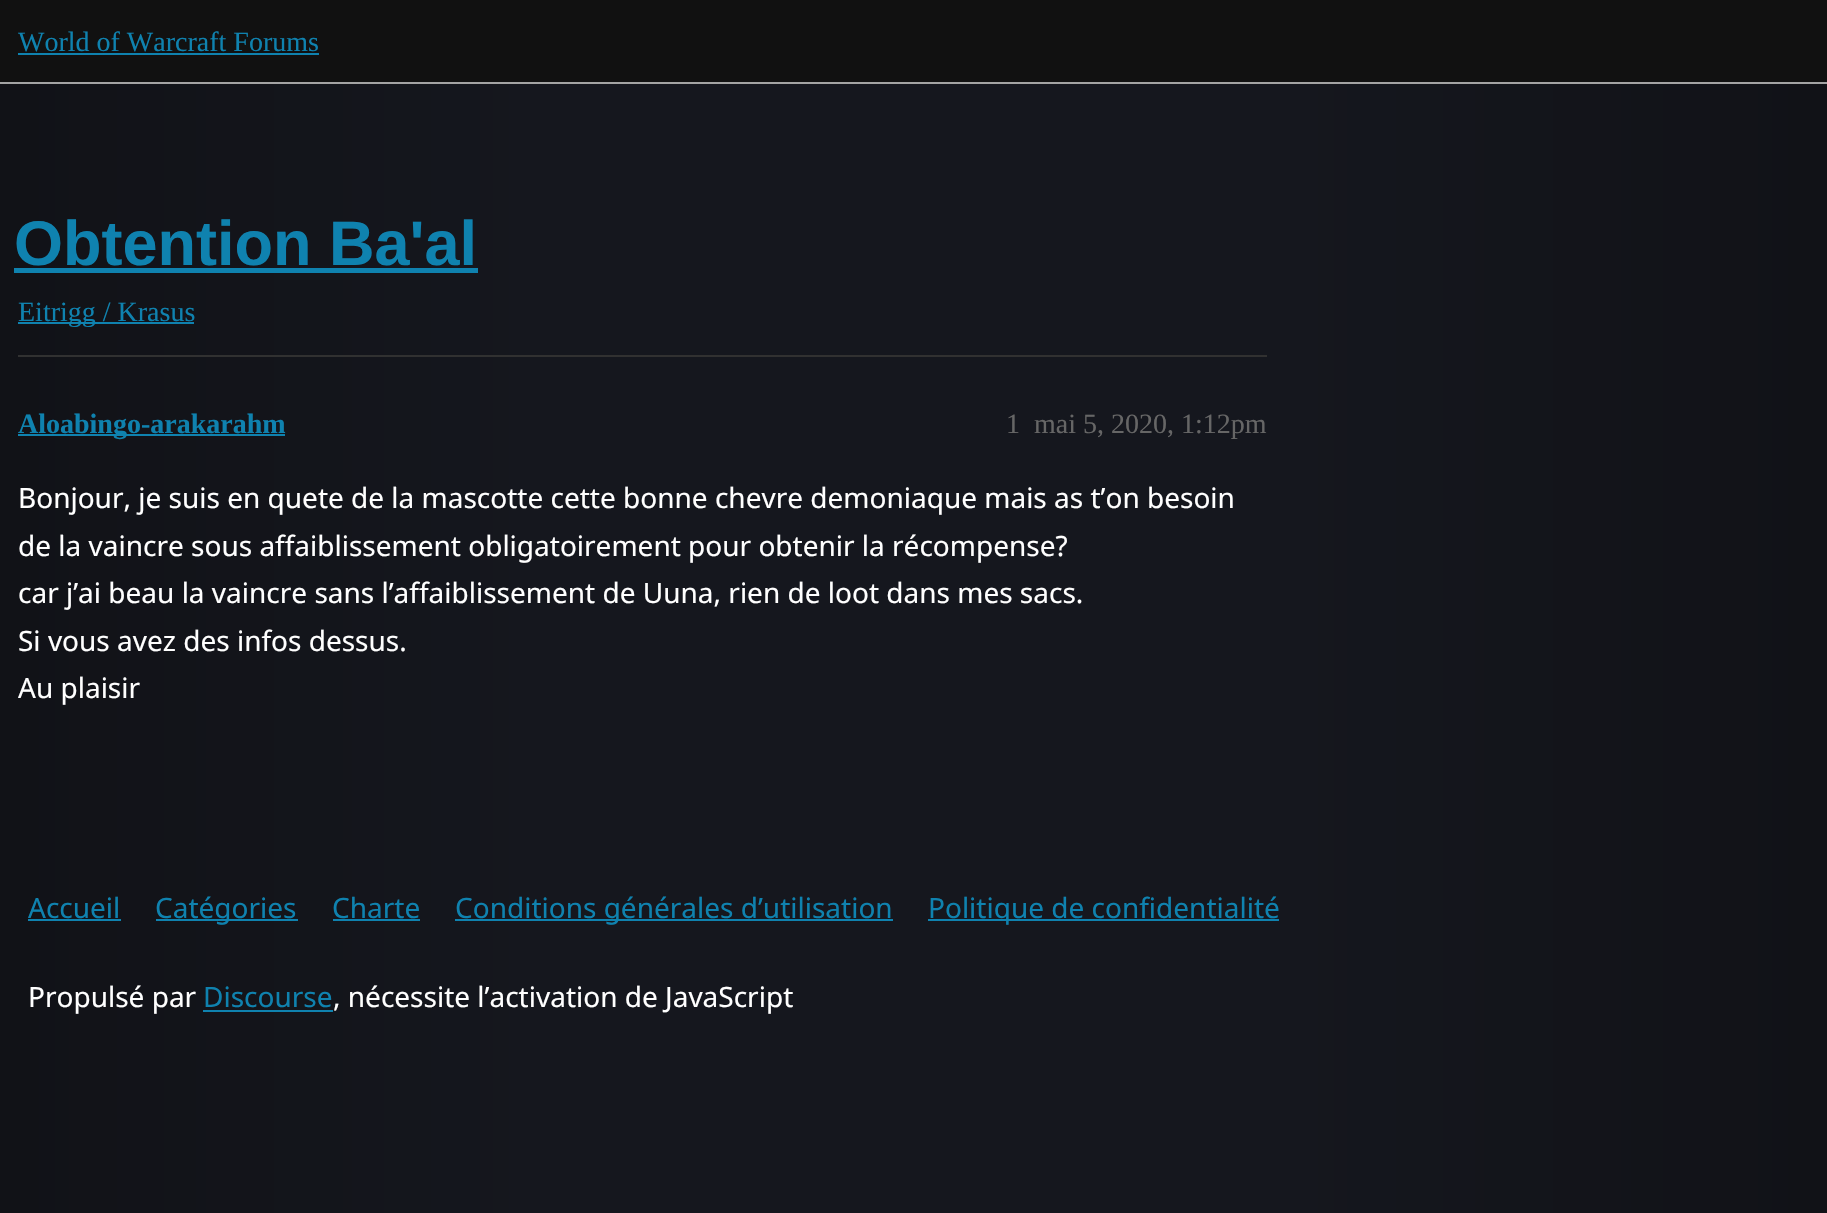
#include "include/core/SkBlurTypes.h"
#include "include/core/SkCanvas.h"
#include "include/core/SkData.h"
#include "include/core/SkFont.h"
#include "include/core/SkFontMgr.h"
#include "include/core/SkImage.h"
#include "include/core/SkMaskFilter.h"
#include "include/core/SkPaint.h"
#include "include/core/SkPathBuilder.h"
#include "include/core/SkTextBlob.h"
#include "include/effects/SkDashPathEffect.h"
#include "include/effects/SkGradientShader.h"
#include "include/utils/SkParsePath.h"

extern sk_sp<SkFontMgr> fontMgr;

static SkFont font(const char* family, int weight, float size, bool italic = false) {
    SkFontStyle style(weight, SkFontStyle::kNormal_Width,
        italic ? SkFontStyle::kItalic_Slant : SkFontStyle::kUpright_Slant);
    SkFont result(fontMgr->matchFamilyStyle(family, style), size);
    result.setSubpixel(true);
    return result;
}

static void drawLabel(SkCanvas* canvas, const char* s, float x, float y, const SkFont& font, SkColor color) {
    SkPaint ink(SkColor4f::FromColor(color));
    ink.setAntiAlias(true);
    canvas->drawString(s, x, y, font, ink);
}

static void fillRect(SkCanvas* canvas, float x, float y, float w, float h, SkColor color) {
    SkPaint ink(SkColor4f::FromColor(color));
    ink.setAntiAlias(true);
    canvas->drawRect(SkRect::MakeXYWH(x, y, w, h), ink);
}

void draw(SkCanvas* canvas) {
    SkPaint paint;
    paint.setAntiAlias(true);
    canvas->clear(0xFFFFFFFF);
    {
        const SkColor colors[] = {0xFF111217, 0xFF15171E, 0xFF15171E, 0xFF111217};
        const float stops[] = {0, 0.3f, 0.7f, 1};
        const SkPoint ends[] = {{0, 607}, {1827, 607}};
        paint.setShader(SkGradientShader::MakeLinear(ends, colors, stops, 4, SkTileMode::kClamp));
        paint.setAlpha(255);
    }
    canvas->drawRect(SkRect::MakeXYWH(0, 84, 1827, 1129), paint);
    fillRect(canvas, 0, 0, 1827, 82, 0xFF111111);
    fillRect(canvas, 0, 82, 1827, 2, 0xFFA4A4A4);
    SkFont font1 = font("Liberation Serif", 400, 28);
    drawLabel(canvas, "World of Warcraft Forums", 18, 51, font1, 0xFF0F82AF);
    fillRect(canvas, 18, 53, 301, 2, 0xFF0F82AF);
    SkFont font2 = font("Liberation Sans", 700, 63);
    drawLabel(canvas, "Obtention Ba'al", 14, 265, font2, 0xFF0F82AF);
    fillRect(canvas, 14, 268, 464, 5, 0xFF0F82AF);
    fillRect(canvas, 18, 322, 176, 2, 0xFF0F82AF);
    drawLabel(canvas, "Eitrigg / Krasus", 18, 321, font1, 0xFF0F82AF);
    fillRect(canvas, 18, 355, 1249, 2, 0xFF313131);
    fillRect(canvas, 18, 434, 267, 2, 0xFF0F82AF);
    SkFont font3 = font("Liberation Serif", 700, 28);
    drawLabel(canvas, "Aloabingo-arakarahm", 18, 433, font3, 0xFF0F82AF);
    drawLabel(canvas, "1", 1006, 433, font1, 0xFF666666);
    drawLabel(canvas, "mai 5, 2020, 1:12pm", 1034, 433, font1, 0xFF666666);
    SkFont font4 = font("Noto Sans", 400, 28);
    drawLabel(canvas, "Bonjour, je suis en quete de la mascotte cette bonne chevre demoniaque mais as t’on besoin", 18, 508, font4, 0xFFFFFFFF);
    drawLabel(canvas, "de la vaincre sous affaiblissement obligatoirement pour obtenir la récompense?", 18, 556, font4, 0xFFFFFFFF);
    drawLabel(canvas, "car j’ai beau la vaincre sans l’affaiblissement de Uuna, rien de loot dans mes sacs.", 18, 603, font4, 0xFFFFFFFF);
    drawLabel(canvas, "Si vous avez des infos dessus.", 18, 651, font4, 0xFFFFFFFF);
    drawLabel(canvas, "Au plaisir", 18, 698, font4, 0xFFFFFFFF);
    drawLabel(canvas, "Accueil", 28, 918, font4, 0xFF0F82AF);
    fillRect(canvas, 28, 919, 93, 2, 0xFF0F82AF);
    fillRect(canvas, 156, 919, 142, 2, 0xFF0F82AF);
    drawLabel(canvas, "Catégories", 155, 918, font4, 0xFF0F82AF);
    drawLabel(canvas, "Charte", 332, 918, font4, 0xFF0F82AF);
    fillRect(canvas, 333, 919, 87, 2, 0xFF0F82AF);
    fillRect(canvas, 455, 919, 438, 2, 0xFF0F82AF);
    drawLabel(canvas, "Conditions générales d’utilisation", 455, 918, font4, 0xFF0F82AF);
    fillRect(canvas, 928, 919, 351, 2, 0xFF0F82AF);
    drawLabel(canvas, "Politique de confidentialité", 928, 918, font4, 0xFF0F82AF);
    drawLabel(canvas, "Propulsé par", 28, 1007, font4, 0xFFFFFFFF);
    drawLabel(canvas, "Discourse", 203, 1007, font4, 0xFF0F82AF);
    fillRect(canvas, 203, 1010, 130, 2, 0xFF0F82AF);
    drawLabel(canvas, ", nécessite l’activation de JavaScript", 333, 1007, font4, 0xFFFFFFFF);
}
